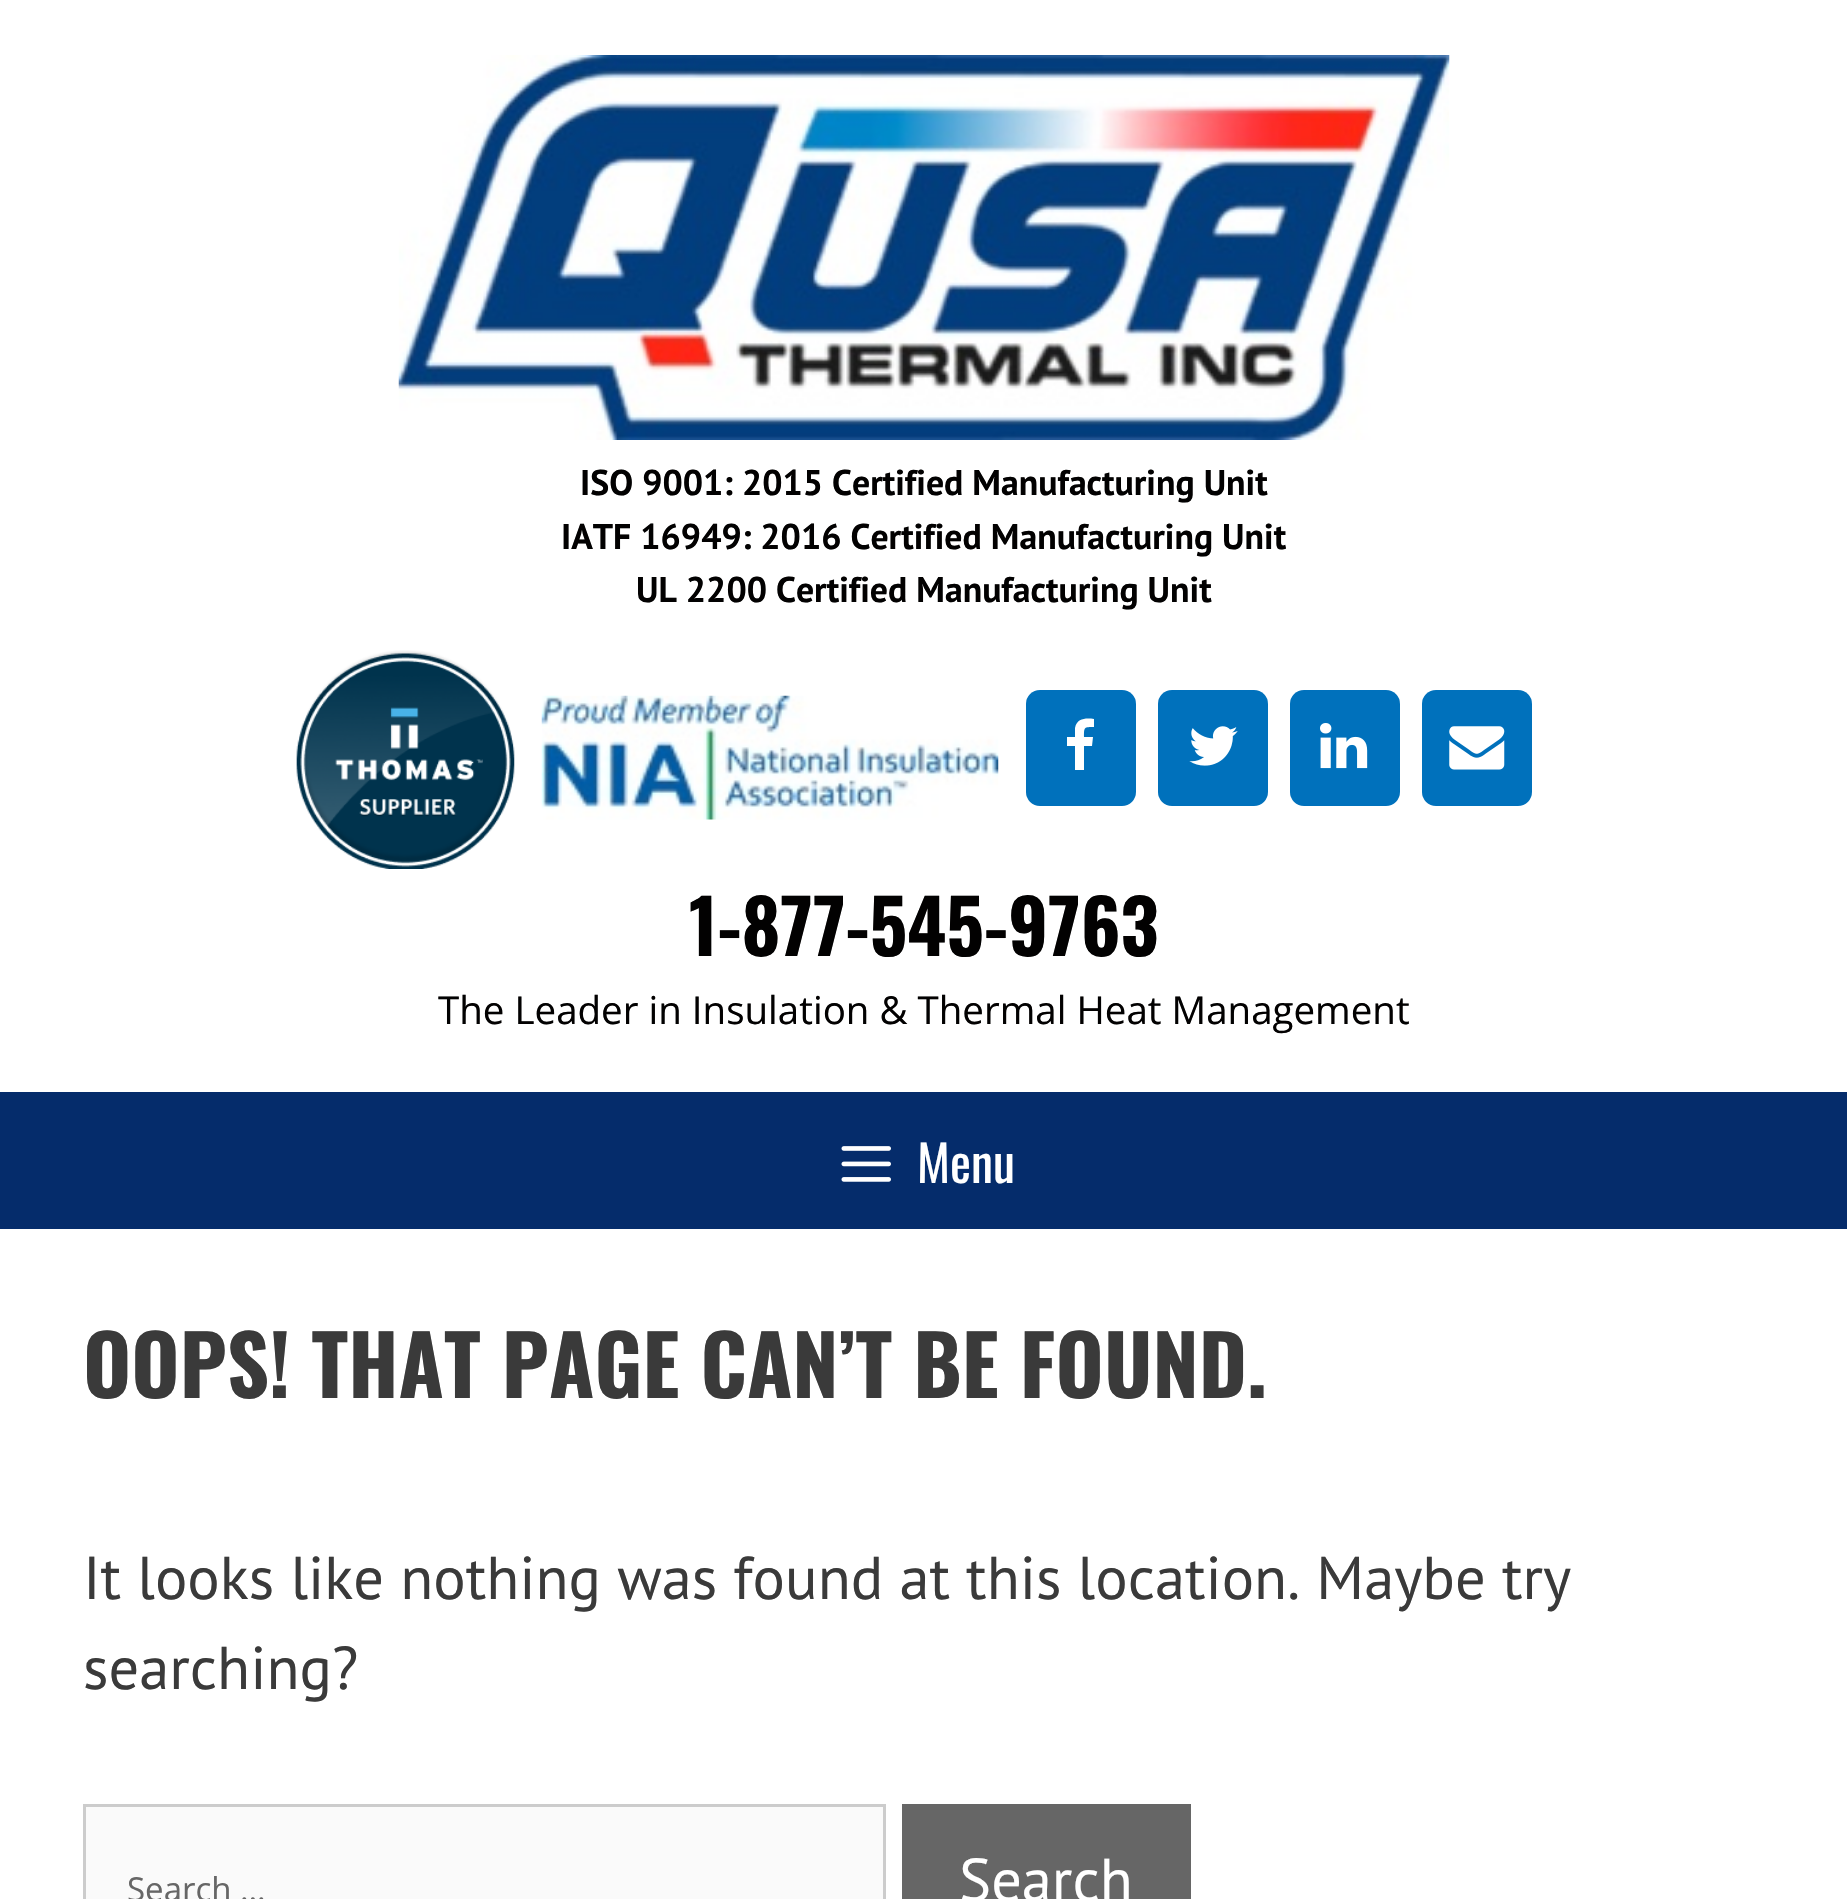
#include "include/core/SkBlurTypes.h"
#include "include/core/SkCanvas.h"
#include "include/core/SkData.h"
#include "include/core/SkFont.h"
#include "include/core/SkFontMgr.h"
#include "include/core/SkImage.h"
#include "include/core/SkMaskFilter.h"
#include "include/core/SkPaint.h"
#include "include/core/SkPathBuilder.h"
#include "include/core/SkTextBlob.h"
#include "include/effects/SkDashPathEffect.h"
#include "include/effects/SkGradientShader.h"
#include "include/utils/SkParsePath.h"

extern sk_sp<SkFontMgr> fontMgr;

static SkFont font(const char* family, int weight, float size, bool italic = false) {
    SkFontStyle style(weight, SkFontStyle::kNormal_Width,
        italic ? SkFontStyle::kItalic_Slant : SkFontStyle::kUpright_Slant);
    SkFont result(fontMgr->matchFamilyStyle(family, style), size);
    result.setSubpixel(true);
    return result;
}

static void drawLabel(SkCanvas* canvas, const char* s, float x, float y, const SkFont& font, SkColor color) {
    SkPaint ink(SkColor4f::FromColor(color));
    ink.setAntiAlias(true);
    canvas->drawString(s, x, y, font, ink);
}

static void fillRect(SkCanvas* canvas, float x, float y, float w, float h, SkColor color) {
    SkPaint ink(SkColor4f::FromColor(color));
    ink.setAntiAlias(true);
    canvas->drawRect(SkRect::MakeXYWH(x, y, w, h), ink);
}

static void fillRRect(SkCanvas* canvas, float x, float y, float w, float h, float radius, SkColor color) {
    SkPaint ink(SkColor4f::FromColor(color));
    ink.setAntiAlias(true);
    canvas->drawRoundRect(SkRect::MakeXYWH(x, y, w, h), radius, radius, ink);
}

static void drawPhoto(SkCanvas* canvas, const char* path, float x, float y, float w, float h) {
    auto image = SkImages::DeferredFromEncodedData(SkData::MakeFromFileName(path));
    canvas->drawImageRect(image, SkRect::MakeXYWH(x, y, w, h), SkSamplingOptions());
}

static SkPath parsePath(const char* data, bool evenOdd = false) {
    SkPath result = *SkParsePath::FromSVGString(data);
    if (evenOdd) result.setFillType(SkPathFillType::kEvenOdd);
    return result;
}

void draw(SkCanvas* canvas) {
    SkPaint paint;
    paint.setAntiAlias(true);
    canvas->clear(0xFFFFFFFF);
    drawPhoto(canvas, "assets/img1.png", 398, 55, 1052, 385);
    SkFont font1 = font("PT Sans", 700, 35.75f);
    drawLabel(canvas, "ISO 9001: 2015 Certified Manufacturing Unit", 580, 495, font1, 0xFF020101);
    drawLabel(canvas, "IATF 16949: 2016 Certified Manufacturing Unit", 561, 549, font1, 0xFF020101);
    drawLabel(canvas, "UL 2200 Certified Manufacturing Unit", 636, 602, font1, 0xFF020101);
    drawPhoto(canvas, "assets/img2.png", 296, 650, 219, 219);
    drawPhoto(canvas, "assets/img3.png", 541, 695, 458, 125);
    fillRRect(canvas, 1026, 690, 110, 116, 14, 0xFF0071BC);
    paint.setColor(0xFFFFFFFF);
    canvas->drawPath(parsePath("M1094 719V727C1084 727 1084 727 1084 737H1093L1092 746H1084V770H1075V746H1067V737H1075V728C1077 718 1086 718 1094 719Z"), paint);
    fillRRect(canvas, 1158, 690, 110, 116, 14, 0xFF0071BC);
    drawPhoto(canvas, "assets/img4.png", 1189, 726, 49, 40);
    fillRRect(canvas, 1290, 690, 110, 116, 14, 0xFF0071BC);
    drawPhoto(canvas, "assets/img5.png", 1320, 723, 48, 46);
    fillRRect(canvas, 1422, 690, 110, 116, 14, 0xFF0071BC);
    drawPhoto(canvas, "assets/img6.png", 1449, 726, 56, 44);
    SkFont font2 = font("Oswald", 700, 74.25f);
    drawLabel(canvas, "1-877-545-9763", 689, 956, font2, 0xFF020101);
    SkFont font3 = font("Open Sans", 400, 38.5f);
    drawLabel(canvas, "The Leader in Insulation & Thermal Heat Management", 438, 1024, font3, 0xFF020101);
    fillRect(canvas, 0, 1092, 1847, 137, 0xFF052C6B);
    drawPhoto(canvas, "assets/img7.png", 841, 1146, 50, 36);
    SkFont font4 = font("Oswald", 400, 50);
    drawLabel(canvas, "Menu", 917, 1183, font4, 0xFFFFFFFF);
    SkFont font5 = font("Oswald", 700, 82.5f);
    drawLabel(canvas, "OOPS! THAT PAGE CAN’T BE FOUND.", 83, 1398, font5, 0xFF3A3A3A);
    SkFont font6 = font("PT Sans", 400, 60.5f);
    drawLabel(canvas, "It looks like nothing was found at this location. Maybe try", 83, 1599, font6, 0xFF3A3A3A);
    drawLabel(canvas, "searching?", 83, 1689, font6, 0xFF3A3A3A);
    paint.setColor(0xFFFAFAFA);
    canvas->drawRect(SkRect::MakeXYWH(84.5f, 1805.5f, 800, 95), paint);
    paint.setStroke(true);
    paint.setStrokeWidth(3);
    paint.setColor(0xFFCCCCCC);
    canvas->drawRect(SkRect::MakeXYWH(84.5f, 1805.5f, 800, 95), paint);
    SkFont font7 = font("Open Sans", 400, 33);
    drawLabel(canvas, "Search …", 127, 1901, font7, 0xFF666666);
    fillRect(canvas, 902, 1804, 289, 95, 0xFF666666);
    drawLabel(canvas, "Search", 959, 1901, font6, 0xFFFFFFFF);
}
